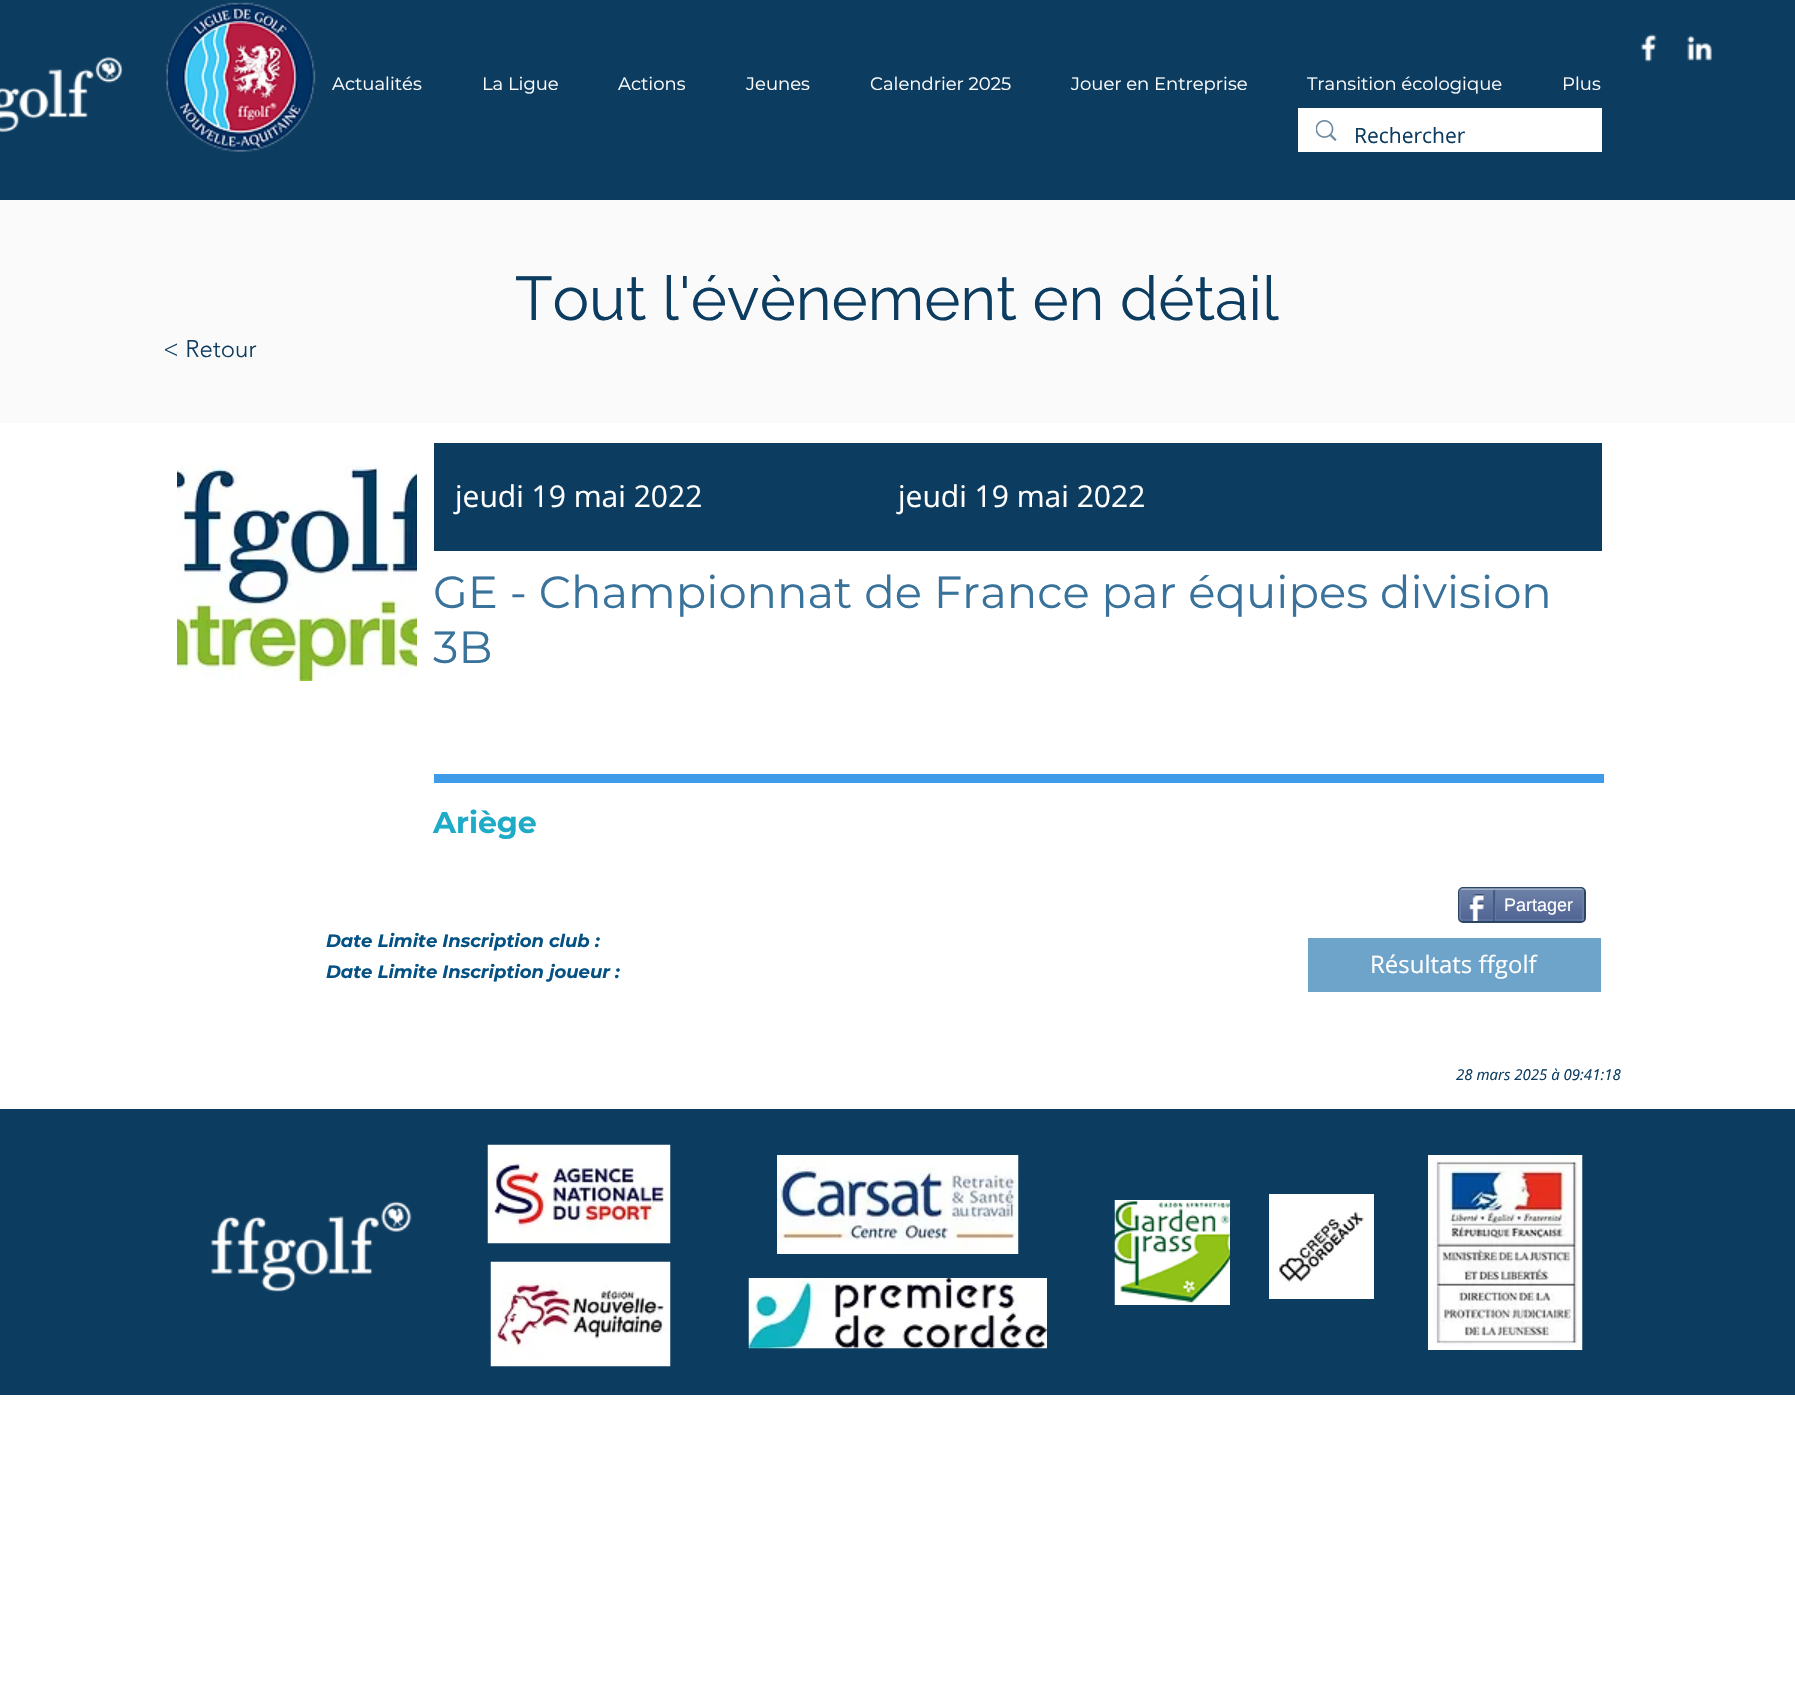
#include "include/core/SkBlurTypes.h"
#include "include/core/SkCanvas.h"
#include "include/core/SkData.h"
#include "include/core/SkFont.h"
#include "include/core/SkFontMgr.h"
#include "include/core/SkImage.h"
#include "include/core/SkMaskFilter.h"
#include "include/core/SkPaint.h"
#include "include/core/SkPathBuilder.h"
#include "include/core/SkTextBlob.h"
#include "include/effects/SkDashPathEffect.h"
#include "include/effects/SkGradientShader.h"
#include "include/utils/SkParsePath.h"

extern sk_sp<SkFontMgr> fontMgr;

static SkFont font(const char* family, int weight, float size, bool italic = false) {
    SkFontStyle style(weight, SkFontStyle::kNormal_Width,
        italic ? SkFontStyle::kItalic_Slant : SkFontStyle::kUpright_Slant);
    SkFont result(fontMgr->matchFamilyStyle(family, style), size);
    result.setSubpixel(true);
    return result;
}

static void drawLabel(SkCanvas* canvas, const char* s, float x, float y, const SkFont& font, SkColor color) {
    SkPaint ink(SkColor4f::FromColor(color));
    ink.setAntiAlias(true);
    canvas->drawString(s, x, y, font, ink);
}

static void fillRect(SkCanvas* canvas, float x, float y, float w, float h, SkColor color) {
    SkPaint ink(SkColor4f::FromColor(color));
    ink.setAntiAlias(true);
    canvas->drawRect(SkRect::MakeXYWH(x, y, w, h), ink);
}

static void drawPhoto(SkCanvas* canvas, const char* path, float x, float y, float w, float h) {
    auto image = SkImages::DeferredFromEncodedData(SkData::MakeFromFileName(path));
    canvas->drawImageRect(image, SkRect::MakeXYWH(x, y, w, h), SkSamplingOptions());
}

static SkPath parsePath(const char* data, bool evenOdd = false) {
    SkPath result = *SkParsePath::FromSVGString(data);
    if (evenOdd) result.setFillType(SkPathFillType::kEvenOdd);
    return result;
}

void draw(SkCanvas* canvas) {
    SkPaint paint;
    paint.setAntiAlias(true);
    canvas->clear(0xFFFFFFFF);
    fillRect(canvas, 0, 0, 1795, 200, 0xFF0C3C60);
    drawPhoto(canvas, "assets/img1.png", 166, 2, 150, 150);
    drawPhoto(canvas, "assets/img2.png", 1640, 34, 17, 28);
    drawPhoto(canvas, "assets/img3.png", 1687, 35, 25, 26);
    drawPhoto(canvas, "assets/img4.png", 0, 57, 123, 75);
    SkFont font1 = font("Montserrat", 400, 18);
    drawLabel(canvas, "Actualités", 332, 90, font1, 0xFFFFFFFF);
    drawLabel(canvas, "La Ligue", 482, 90, font1, 0xFFFFFFFF);
    drawLabel(canvas, "Actions", 618, 90, font1, 0xFFFFFFFF);
    drawLabel(canvas, "Jeunes", 746, 90, font1, 0xFFFFFFFF);
    drawLabel(canvas, "Calendrier 2025", 870, 90, font1, 0xFFFFFFFF);
    drawLabel(canvas, "Jouer en Entreprise", 1071, 90, font1, 0xFFFFFFFF);
    drawLabel(canvas, "Transition écologique", 1307, 90, font1, 0xFFFFFFFF);
    drawLabel(canvas, "Plus", 1562, 90, font1, 0xFFFFFFFF);
    fillRect(canvas, 1298, 108, 304, 44, 0xFFFFFFFF);
    drawPhoto(canvas, "assets/img5.png", 1316, 120, 21, 21);
    SkFont font2 = font("Open Sans", 400, 21);
    drawLabel(canvas, "Rechercher", 1354, 143, font2, 0xFF0C3C60);
    fillRect(canvas, 0, 200, 1795, 223, 0xFFFAFAFA);
    SkFont font3 = font("Raleway", 400, 61.5f);
    drawLabel(canvas, "Tout l'évènement en détail", 515, 320, font3, 0xFF0C3C60);
    SkFont font4 = font("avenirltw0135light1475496", 300, 24);
    drawLabel(canvas, "< Retour", 163, 357, font4, 0xFF0C3C60);
    drawPhoto(canvas, "assets/img6.png", 177, 465, 240, 216);
    fillRect(canvas, 434, 443, 1168, 108, 0xFF0C3C60);
    SkFont font5 = font("Open Sans", 400, 30);
    drawLabel(canvas, "jeudi 19 mai 2022", 455, 507, font5, 0xFFFFFFFF);
    drawLabel(canvas, "jeudi 19 mai 2022", 898, 507, font5, 0xFFFFFFFF);
    SkFont font6 = font("Montserrat", 400, 45);
    drawLabel(canvas, "GE - Championnat de France par équipes division", 433, 608, font6, 0xFF39729B);
    drawLabel(canvas, "3B", 433, 663, font6, 0xFF39729B);
    fillRect(canvas, 434, 774, 1170, 9, 0xFF3D9BE9);
    SkFont font7 = font("Montserrat", 700, 30);
    drawLabel(canvas, "Ariège", 433, 833, font7, 0xFF1EABC7);
    paint.setStroke(true);
    paint.setStrokeWidth(2);
    paint.setColor(0xFF2D4565);
    canvas->drawRoundRect(SkRect::MakeXYWH(1459, 888, 126, 34), 4, 4, paint);
    drawPhoto(canvas, "assets/img7.png", 1459, 889, 125, 32);
    paint.setStrokeWidth(1.5f);
    paint.setColor(0xFF9AABC6);
    canvas->drawPath(parsePath("M1461 889.5L1462.5 889H1561H1581L1582.5 889.5"), paint);
    paint.setColor(0xFF6F83AD);
    canvas->drawPath(parsePath("M1582.5 889.5C1583 890 1583 890.5 1583 891V918C1583 918.5 1583 919 1582.5 919.5"), paint);
    paint.setColor(0xFF6176A3);
    canvas->drawPath(parsePath("M1582.5 919.5L1581 920H1462.5L1461 919.5"), paint);
    paint.setColor(0xFF6F83AD);
    canvas->drawPath(parsePath("M1461 919.5C1460.5 919 1460 918.5 1460 918V891C1460 890.5 1460.5 890 1461 889.5"), paint);
    drawPhoto(canvas, "assets/img8.png", 1468, 894, 16, 27);
    fillRect(canvas, 1493, 890, 2, 31, 0xFF425E85);
    SkFont font8 = font("Liberation Sans", 400, 18);
    drawLabel(canvas, "Partager", 1504, 911, font8, 0xFFFFFFFF);
    fillRect(canvas, 1495, 890, 1, 30, 0xFF6176A3);
    SkFont font9 = font("Montserrat", 700, 18, true);
    drawLabel(canvas, "Date Limite Inscription club :", 326, 947, font9, 0xFF045184);
    drawLabel(canvas, "Date Limite Inscription joueur :", 326, 978, font9, 0xFF045184);
    fillRect(canvas, 1308, 938, 293, 54, 0xFF6EA4CA);
    SkFont font10 = font("Open Sans", 400, 24);
    drawLabel(canvas, "Résultats ffgolf", 1370, 973, font10, 0xFFFFFFFF);
    SkFont font11 = font("Open Sans", 400, 15, true);
    drawLabel(canvas, "28 mars 2025 à 09:41:18", 1456, 1080, font11, 0xFF0C3C60);
    fillRect(canvas, 0, 1109, 1795, 286, 0xFF0C3C60);
    drawPhoto(canvas, "assets/img9.png", 211, 1201, 201, 91);
    drawPhoto(canvas, "assets/img10.png", 487, 1144, 184, 100);
    drawPhoto(canvas, "assets/img11.png", 777, 1155, 242, 99);
    drawPhoto(canvas, "assets/img12.png", 1114, 1200, 116, 105);
    drawPhoto(canvas, "assets/img13.png", 1269, 1194, 105, 105);
    drawPhoto(canvas, "assets/img14.png", 1428, 1155, 155, 195);
    drawPhoto(canvas, "assets/img15.png", 490, 1261, 181, 106);
    drawPhoto(canvas, "assets/img16.png", 748, 1278, 299, 71);
}
